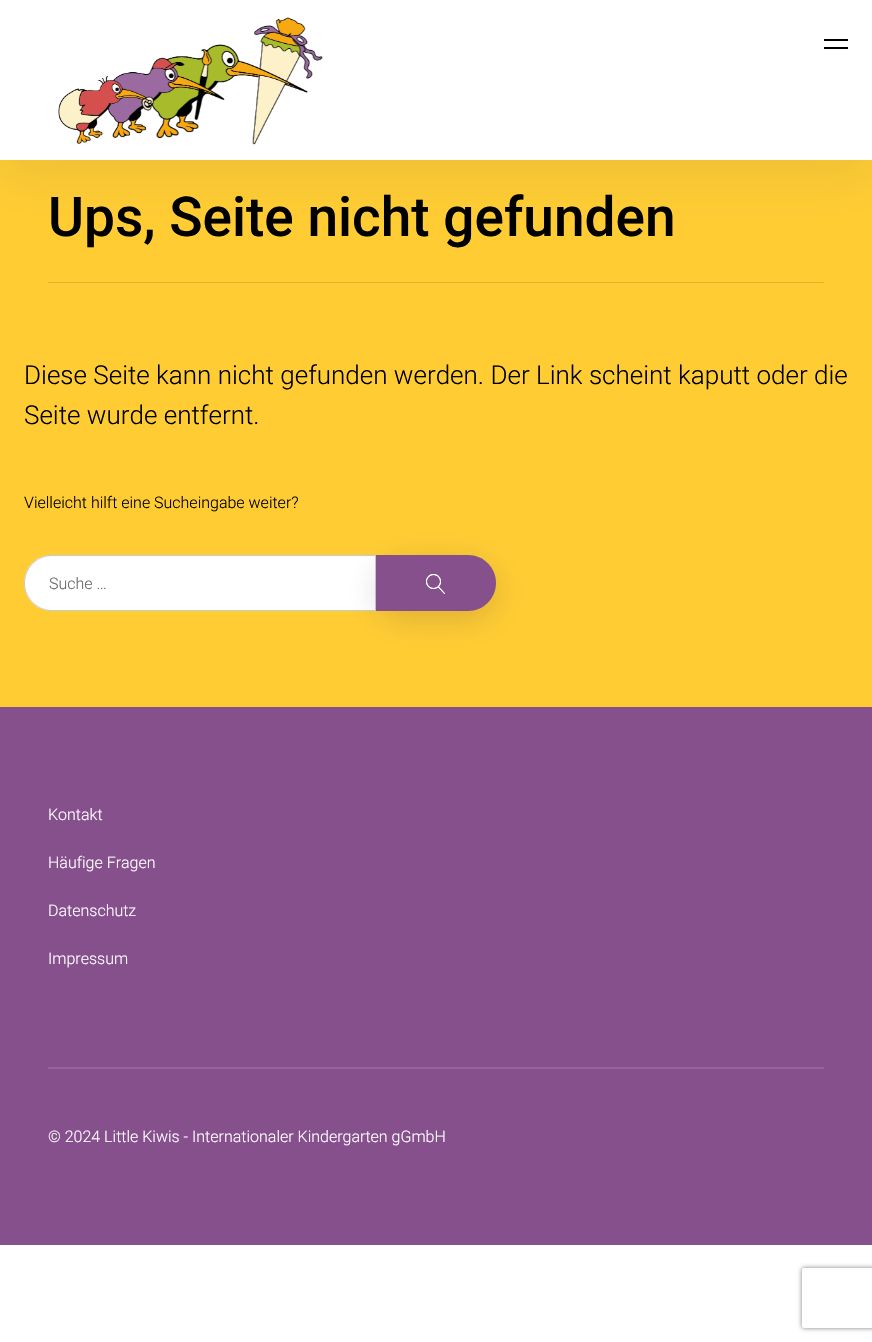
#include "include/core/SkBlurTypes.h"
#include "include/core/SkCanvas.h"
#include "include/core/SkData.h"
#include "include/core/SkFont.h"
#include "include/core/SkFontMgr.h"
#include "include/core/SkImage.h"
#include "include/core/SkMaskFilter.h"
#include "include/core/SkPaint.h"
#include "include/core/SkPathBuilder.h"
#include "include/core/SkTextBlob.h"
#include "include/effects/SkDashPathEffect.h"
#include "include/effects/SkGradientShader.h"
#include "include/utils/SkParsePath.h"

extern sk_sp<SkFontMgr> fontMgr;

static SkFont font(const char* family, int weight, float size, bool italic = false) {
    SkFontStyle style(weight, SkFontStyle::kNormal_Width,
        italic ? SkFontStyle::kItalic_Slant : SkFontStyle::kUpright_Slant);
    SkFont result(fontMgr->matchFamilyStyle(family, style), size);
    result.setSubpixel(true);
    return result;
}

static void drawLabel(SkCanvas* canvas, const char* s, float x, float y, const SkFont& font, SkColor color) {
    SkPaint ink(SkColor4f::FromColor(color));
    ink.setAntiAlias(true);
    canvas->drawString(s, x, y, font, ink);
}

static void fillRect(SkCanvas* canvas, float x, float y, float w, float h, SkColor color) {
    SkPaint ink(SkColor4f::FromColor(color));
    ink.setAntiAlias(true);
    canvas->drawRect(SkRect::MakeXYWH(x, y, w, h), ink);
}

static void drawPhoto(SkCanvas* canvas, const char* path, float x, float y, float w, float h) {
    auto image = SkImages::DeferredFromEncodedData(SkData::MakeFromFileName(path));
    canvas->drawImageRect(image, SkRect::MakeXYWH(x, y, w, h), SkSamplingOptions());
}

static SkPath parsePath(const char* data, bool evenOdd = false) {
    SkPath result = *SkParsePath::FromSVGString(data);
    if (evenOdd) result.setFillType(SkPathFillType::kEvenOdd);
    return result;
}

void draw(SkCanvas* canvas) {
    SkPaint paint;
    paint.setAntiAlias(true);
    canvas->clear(0xFFFFFFFF);
    fillRect(canvas, 0, 160, 872, 547, 0xFFFFCC33);
    paint.setColor(0x141F2044);
    paint.setMaskFilter(SkMaskFilter::MakeBlur(kNormal_SkBlurStyle, 24));
    canvas->drawRect(SkRect::MakeXYWH(0, 16, 872, 160), paint);
    paint.setMaskFilter(nullptr);
    fillRect(canvas, 0, 0, 872, 160, 0xFFFFFFFF);
    drawPhoto(canvas, "assets/img1.png", 58, 17, 265, 128);
    fillRect(canvas, 824, 39, 24, 2, 0xFF000000);
    fillRect(canvas, 824, 47, 24, 2, 0xFF000000);
    fillRect(canvas, 48, 282, 776, 1, 0xFFE0B42D);
    SkFont font1 = font("Roboto", 500, 55);
    drawLabel(canvas, "Ups, Seite nicht gefunden", 48, 236, font1, 0xFF000000);
    SkFont font2 = font("Roboto", 300, 26);
    drawLabel(canvas, "Diese Seite kann nicht gefunden werden. Der Link scheint kaputt oder die", 24, 384, font2, 0xFF000000);
    drawLabel(canvas, "Seite wurde entfernt.", 24, 424, font2, 0xFF000000);
    SkFont font3 = font("Roboto", 300, 16);
    drawLabel(canvas, "Vielleicht hilft eine Sucheingabe weiter?", 24, 508, font3, 0xFF000000);
    paint.setColor(0xFFFFFFFF);
    canvas->drawPath(parsePath("M52 555H376V611H52C36.5 611 24 598.5 24 583C24 567.5 36.5 555 52 555Z"), paint);
    paint.setStroke(true);
    paint.setStrokeWidth(1);
    paint.setColor(0x3D1F2044);
    canvas->drawPath(parsePath("M52 555.5H375.5V610.5H52C37 610.5 24.5 598 24.5 583C24.5 568 37 555.5 52 555.5Z"), paint);
    drawLabel(canvas, "Suche …", 49, 589, font3, 0xFF666666);
    paint.setStroke(false);
    paint.setColor(0x291F2044);
    paint.setMaskFilter(SkMaskFilter::MakeBlur(kNormal_SkBlurStyle, 16));
    canvas->drawRoundRect(SkRect::MakeXYWH(376, 563, 120, 56), 28, 28, paint);
    paint.setMaskFilter(nullptr);
    paint.setColor(0xFF86508C);
    canvas->drawPath(parsePath("M376 555H468C483.5 555 496 567.5 496 583C496 598.5 483.5 611 468 611H376Z"), paint);
    drawPhoto(canvas, "assets/img2.png", 426, 574, 19, 20);
    drawPhoto(canvas, "assets/img3.png", 426, 574, 19, 20);
    fillRect(canvas, 0, 707, 872, 538, 0xFF86508C);
    drawLabel(canvas, "Kontakt", 48, 820, font3, 0xFFFFFFFF);
    drawLabel(canvas, "Häufige Fragen", 48, 868, font3, 0xFFFFFFFF);
    drawLabel(canvas, "Datenschutz", 48, 916, font3, 0xFFFFFFFF);
    drawLabel(canvas, "Impressum", 48, 964, font3, 0xFFFFFFFF);
    fillRect(canvas, 48, 1067, 776, 2, 0xFF95659A);
    drawLabel(canvas, "© 2024 Little Kiwis - Internationaler Kindergarten gGmbH", 48, 1142, font3, 0xFFFFFFFF);
    canvas->save();
    canvas->clipPath(parsePath("M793 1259H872V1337H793ZM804 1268H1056C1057 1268 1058 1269 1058 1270V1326C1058 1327 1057 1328 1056 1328H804C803 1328 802 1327 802 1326V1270C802 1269 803 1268 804 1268Z", true), true);
    paint.setColor(0xFF808080);
    paint.setMaskFilter(SkMaskFilter::MakeBlur(kNormal_SkBlurStyle, 2.5f));
    canvas->drawRoundRect(SkRect::MakeXYWH(802, 1268, 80, 60), 2, 2, paint);
    paint.setMaskFilter(nullptr);
    canvas->restore();
}
